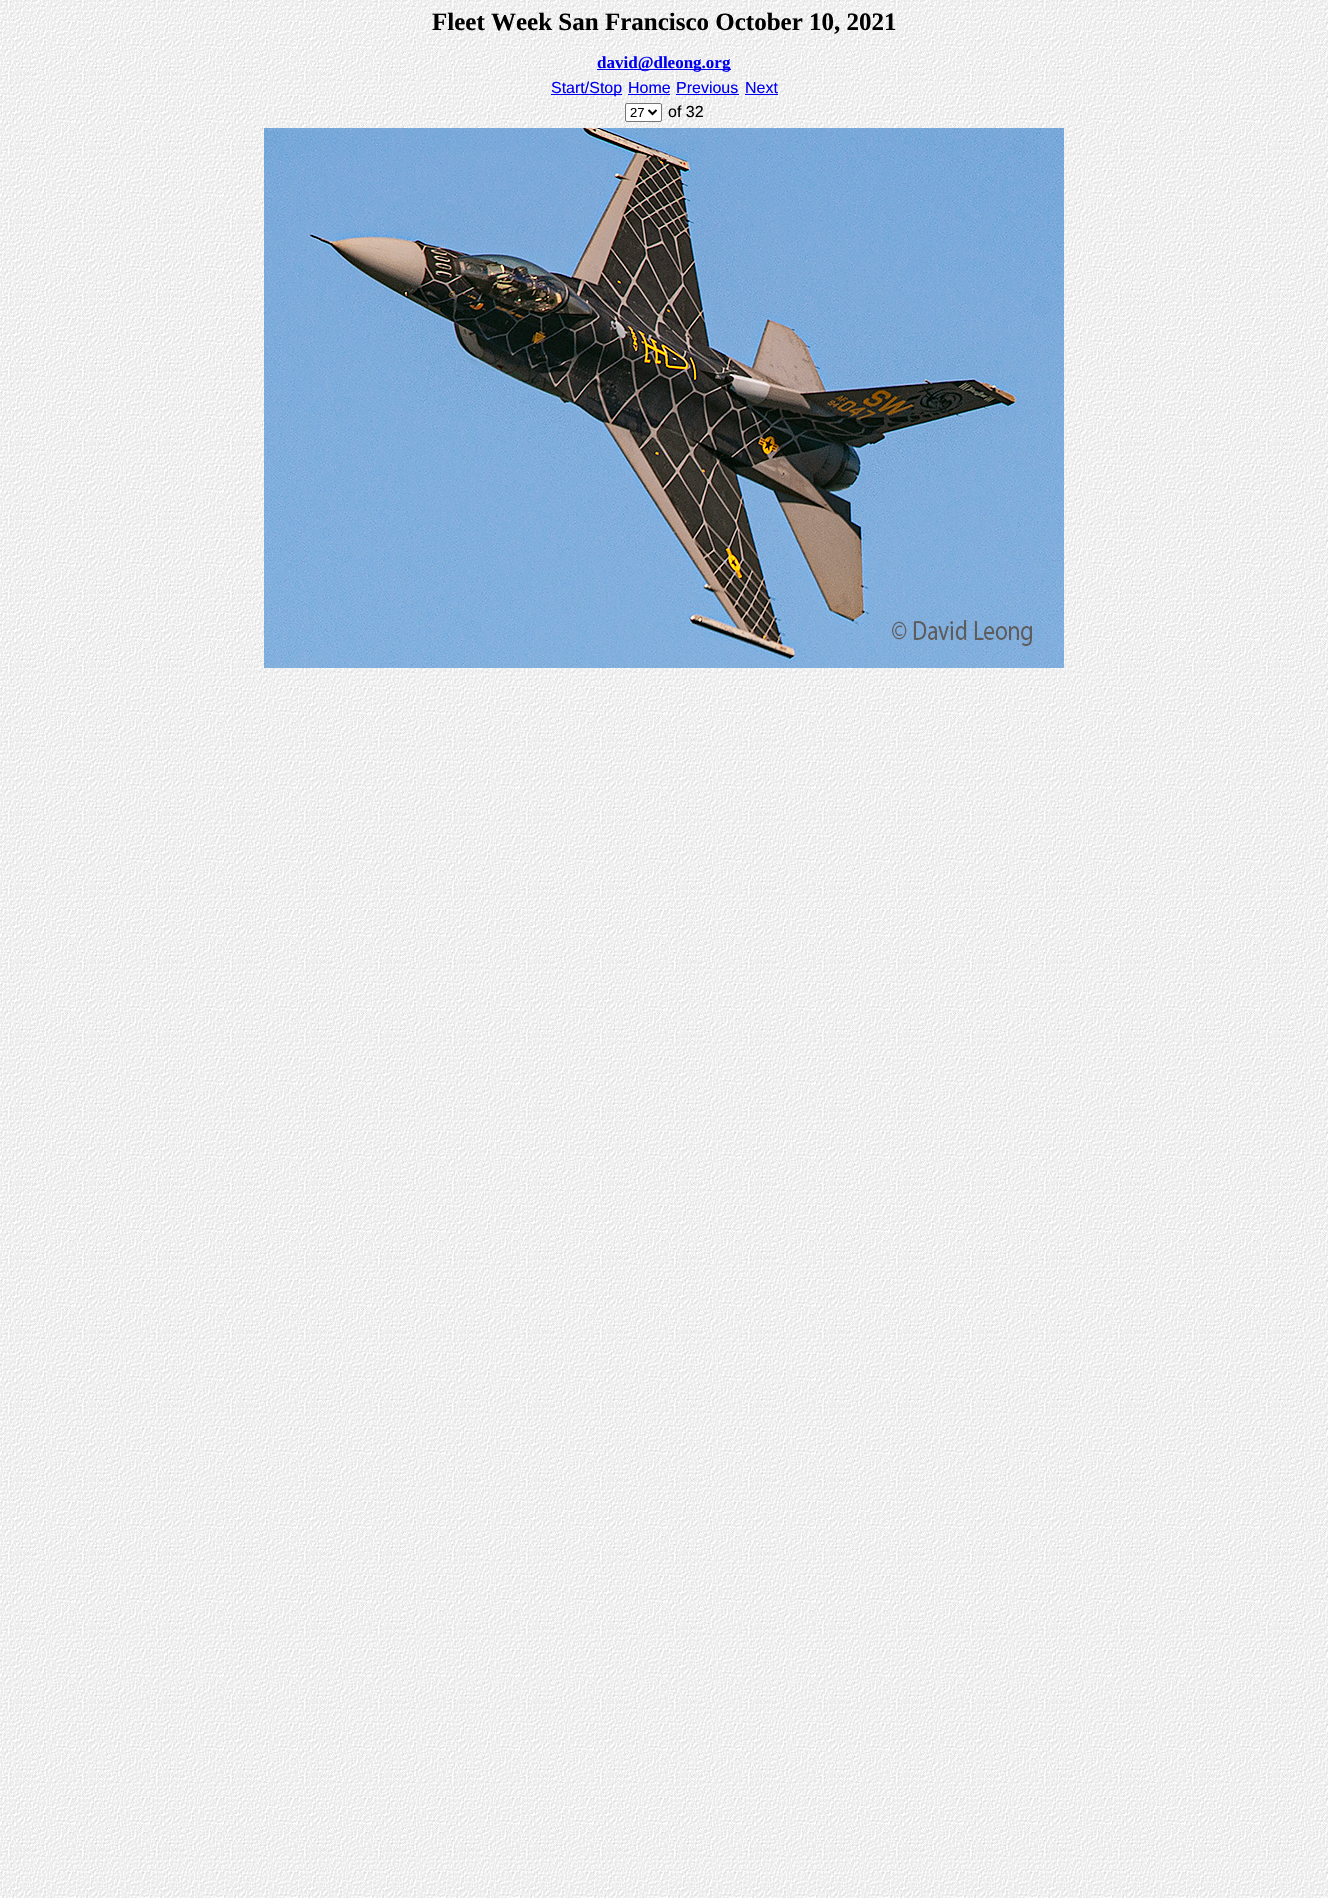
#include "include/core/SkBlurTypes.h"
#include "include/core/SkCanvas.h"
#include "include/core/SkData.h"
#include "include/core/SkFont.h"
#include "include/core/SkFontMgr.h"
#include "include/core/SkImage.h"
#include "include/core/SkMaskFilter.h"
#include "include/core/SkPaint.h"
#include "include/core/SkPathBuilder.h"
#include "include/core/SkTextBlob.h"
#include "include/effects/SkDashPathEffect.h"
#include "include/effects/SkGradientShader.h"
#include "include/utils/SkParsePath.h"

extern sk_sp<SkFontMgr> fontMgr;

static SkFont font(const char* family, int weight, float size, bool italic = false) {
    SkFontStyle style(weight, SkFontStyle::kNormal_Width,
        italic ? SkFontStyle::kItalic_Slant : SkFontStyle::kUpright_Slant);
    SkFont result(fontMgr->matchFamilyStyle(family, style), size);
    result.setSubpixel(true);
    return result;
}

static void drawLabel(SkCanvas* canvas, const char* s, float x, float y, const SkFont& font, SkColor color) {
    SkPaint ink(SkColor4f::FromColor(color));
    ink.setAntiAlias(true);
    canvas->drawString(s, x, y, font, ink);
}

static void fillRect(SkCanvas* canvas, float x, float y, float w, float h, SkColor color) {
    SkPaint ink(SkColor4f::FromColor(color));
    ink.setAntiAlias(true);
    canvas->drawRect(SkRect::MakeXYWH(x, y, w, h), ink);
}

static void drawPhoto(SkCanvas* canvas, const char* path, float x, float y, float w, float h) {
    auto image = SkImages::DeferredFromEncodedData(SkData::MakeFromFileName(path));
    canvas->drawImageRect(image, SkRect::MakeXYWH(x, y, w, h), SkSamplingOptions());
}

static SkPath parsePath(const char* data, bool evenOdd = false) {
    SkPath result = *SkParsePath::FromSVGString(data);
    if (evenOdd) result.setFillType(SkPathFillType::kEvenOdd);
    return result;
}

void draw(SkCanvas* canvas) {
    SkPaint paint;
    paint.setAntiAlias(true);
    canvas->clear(0xFFFFFFFF);
    drawPhoto(canvas, "assets/img1.png", 0, 0, 1328, 1898);
    SkFont font1 = font("Liberation Serif", 700, 25);
    drawLabel(canvas, "Fleet Week San Francisco October 10, 2021", 432, 30, font1, 0xFF000000);
    fillRect(canvas, 597, 69, 134, 1, 0xFF0000EE);
    SkFont font2 = font("Liberation Serif", 700, 17);
    drawLabel(canvas, "david@dleong.org", 597, 68, font2, 0xFF0000EE);
    fillRect(canvas, 551, 94, 71, 1, 0xFF0000EE);
    SkFont font3 = font("Liberation Sans", 400, 16);
    drawLabel(canvas, "Start/Stop", 551, 93, font3, 0xFF0000EE);
    drawLabel(canvas, "Home", 628, 93, font3, 0xFF0000EE);
    fillRect(canvas, 628, 94, 42, 1, 0xFF0000EE);
    drawLabel(canvas, "Previous", 676, 93, font3, 0xFF0000EE);
    fillRect(canvas, 676, 94, 63, 1, 0xFF0000EE);
    drawLabel(canvas, "Next", 745, 93, font3, 0xFF0000EE);
    fillRect(canvas, 745, 94, 33, 1, 0xFF0000EE);
    paint.setColor(0xFFFFFFFF);
    canvas->drawRoundRect(SkRect::MakeXYWH(625.5f, 103.5f, 36, 18), 1.5f, 1.5f, paint);
    paint.setStroke(true);
    paint.setStrokeWidth(1);
    paint.setColor(0xFF767676);
    canvas->drawRoundRect(SkRect::MakeXYWH(625.5f, 103.5f, 36, 18), 1.5f, 1.5f, paint);
    paint.setStrokeWidth(2);
    paint.setColor(0xFF000000);
    canvas->drawPath(parsePath("M648.5 110L652.5 114L656.5 110"), paint);
    SkFont font4 = font("Liberation Sans", 400, 13);
    drawLabel(canvas, "27", 630, 117, font4, 0xFF000000);
    drawLabel(canvas, "of 32", 668, 117, font3, 0xFF000000);
    drawPhoto(canvas, "assets/img2.png", 264, 128, 800, 540);
}
